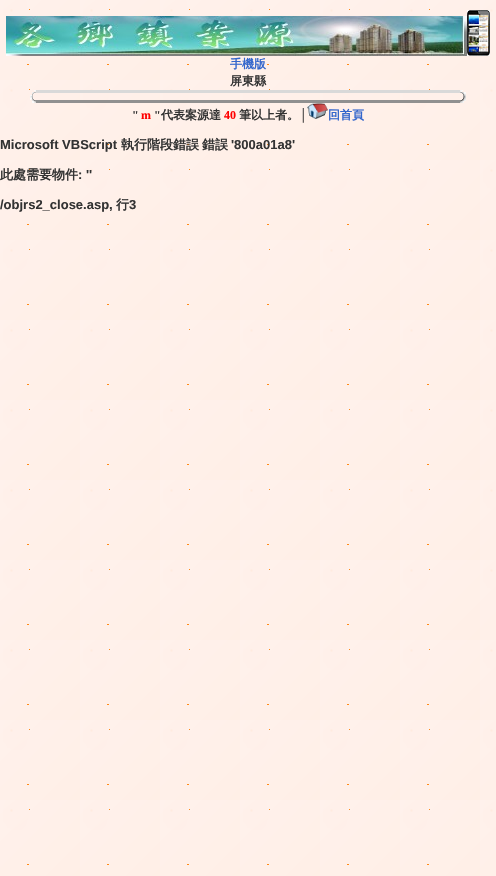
#include "include/core/SkBlurTypes.h"
#include "include/core/SkCanvas.h"
#include "include/core/SkData.h"
#include "include/core/SkFont.h"
#include "include/core/SkFontMgr.h"
#include "include/core/SkImage.h"
#include "include/core/SkMaskFilter.h"
#include "include/core/SkPaint.h"
#include "include/core/SkPathBuilder.h"
#include "include/core/SkTextBlob.h"
#include "include/effects/SkDashPathEffect.h"
#include "include/effects/SkGradientShader.h"
#include "include/utils/SkParsePath.h"

extern sk_sp<SkFontMgr> fontMgr;

static SkFont font(const char* family, int weight, float size, bool italic = false) {
    SkFontStyle style(weight, SkFontStyle::kNormal_Width,
        italic ? SkFontStyle::kItalic_Slant : SkFontStyle::kUpright_Slant);
    SkFont result(fontMgr->matchFamilyStyle(family, style), size);
    result.setSubpixel(true);
    return result;
}

static void drawLabel(SkCanvas* canvas, const char* s, float x, float y, const SkFont& font, SkColor color) {
    SkPaint ink(SkColor4f::FromColor(color));
    ink.setAntiAlias(true);
    canvas->drawString(s, x, y, font, ink);
}

static void fillRect(SkCanvas* canvas, float x, float y, float w, float h, SkColor color) {
    SkPaint ink(SkColor4f::FromColor(color));
    ink.setAntiAlias(true);
    canvas->drawRect(SkRect::MakeXYWH(x, y, w, h), ink);
}

static void drawPhoto(SkCanvas* canvas, const char* path, float x, float y, float w, float h) {
    auto image = SkImages::DeferredFromEncodedData(SkData::MakeFromFileName(path));
    canvas->drawImageRect(image, SkRect::MakeXYWH(x, y, w, h), SkSamplingOptions());
}

void draw(SkCanvas* canvas) {
    SkPaint paint;
    paint.setAntiAlias(true);
    canvas->clear(0xFFFFFFFF);
    drawPhoto(canvas, "assets/img1.png", 0, 0, 496, 876);
    drawPhoto(canvas, "assets/img2.png", 6, 16, 461, 40);
    drawPhoto(canvas, "assets/img3.png", 467, 10, 23, 46);
    SkFont font1 = font("WenQuanYi Zen Hei", 700, 12);
    drawLabel(canvas, "手機版", 230, 68, font1, 0xFF3366CC);
    drawLabel(canvas, "屏東縣", 230, 85, font1, 0xFF333333);
    drawPhoto(canvas, "assets/img4.png", 30, 90, 6, 6);
    fillRect(canvas, 36, 90, 424, 3, 0xFFD9D9D9);
    drawPhoto(canvas, "assets/img5.png", 460, 90, 6, 6);
    drawPhoto(canvas, "assets/img6.png", 30, 96, 3, 1);
    drawPhoto(canvas, "assets/img7.png", 463, 96, 3, 1);
    drawPhoto(canvas, "assets/img8.png", 30, 97, 6, 6);
    fillRect(canvas, 36, 100, 424, 3, 0xFF909090);
    drawPhoto(canvas, "assets/img9.png", 460, 97, 6, 6);
    SkFont font2 = font("Liberation Serif", 700, 12);
    drawLabel(canvas, "\"", 132, 119, font2, 0xFF333333);
    drawLabel(canvas, "m", 141, 119, font2, 0xFFFF0000);
    drawLabel(canvas, "\"", 154, 119, font2, 0xFF333333);
    drawLabel(canvas, "代表案源達", 161, 119, font1, 0xFF333333);
    drawLabel(canvas, "40", 224, 119, font2, 0xFFFF0000);
    drawLabel(canvas, "筆以上者。", 239, 119, font1, 0xFF333333);
    drawLabel(canvas, "│", 299, 119, font2, 0xFF333333);
    drawPhoto(canvas, "assets/img10.png", 307, 103, 21, 16);
    drawLabel(canvas, "回首頁", 328, 119, font1, 0xFF3366CC);
    SkFont font3 = font("Liberation Sans", 700, 13);
    drawLabel(canvas, "Microsoft VBScript", 0, 149, font3, 0xFF333333);
    SkFont font4 = font("WenQuanYi Zen Hei", 700, 13);
    drawLabel(canvas, "執行階段錯誤", 121, 149, font4, 0xFF333333);
    drawLabel(canvas, "錯誤", 202, 149, font4, 0xFF333333);
    drawLabel(canvas, "'800a01a8'", 231, 149, font3, 0xFF333333);
    drawLabel(canvas, "此處需要物件", 0, 179, font4, 0xFF333333);
    drawLabel(canvas, ": ''", 78, 179, font3, 0xFF333333);
    drawLabel(canvas, "/objrs2_close.asp,", 0, 209, font3, 0xFF333333);
    drawLabel(canvas, "行", 116, 209, font4, 0xFF333333);
    drawLabel(canvas, "3", 129, 209, font3, 0xFF333333);
}
